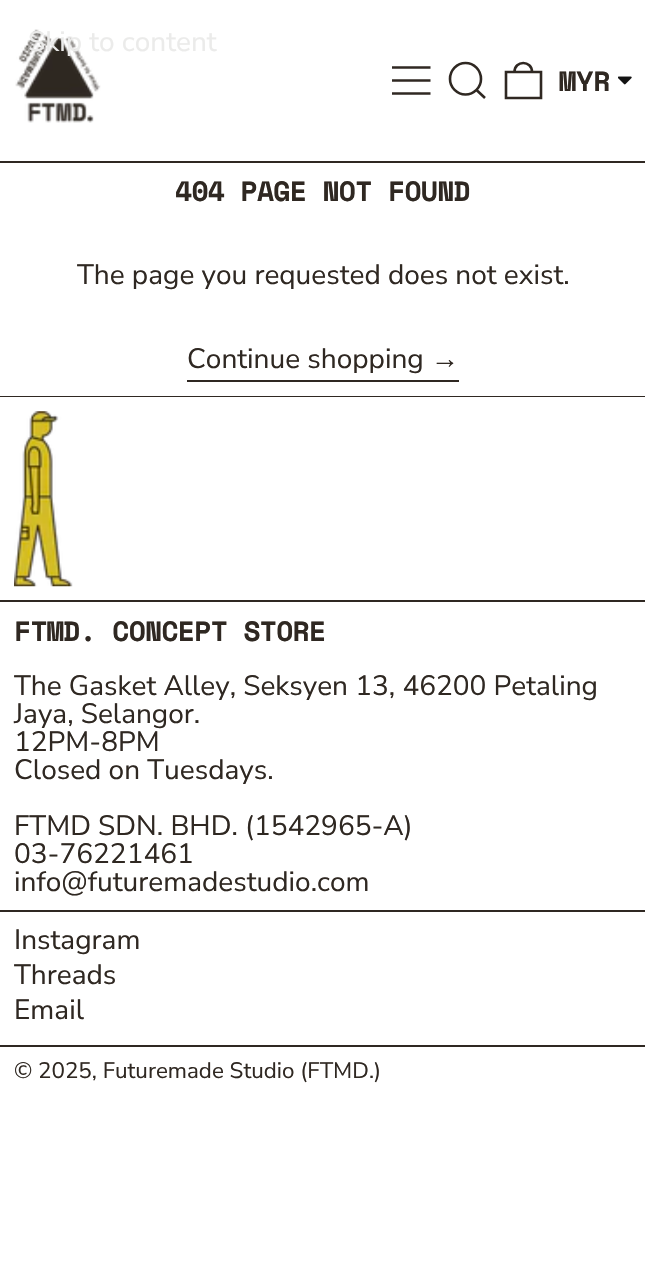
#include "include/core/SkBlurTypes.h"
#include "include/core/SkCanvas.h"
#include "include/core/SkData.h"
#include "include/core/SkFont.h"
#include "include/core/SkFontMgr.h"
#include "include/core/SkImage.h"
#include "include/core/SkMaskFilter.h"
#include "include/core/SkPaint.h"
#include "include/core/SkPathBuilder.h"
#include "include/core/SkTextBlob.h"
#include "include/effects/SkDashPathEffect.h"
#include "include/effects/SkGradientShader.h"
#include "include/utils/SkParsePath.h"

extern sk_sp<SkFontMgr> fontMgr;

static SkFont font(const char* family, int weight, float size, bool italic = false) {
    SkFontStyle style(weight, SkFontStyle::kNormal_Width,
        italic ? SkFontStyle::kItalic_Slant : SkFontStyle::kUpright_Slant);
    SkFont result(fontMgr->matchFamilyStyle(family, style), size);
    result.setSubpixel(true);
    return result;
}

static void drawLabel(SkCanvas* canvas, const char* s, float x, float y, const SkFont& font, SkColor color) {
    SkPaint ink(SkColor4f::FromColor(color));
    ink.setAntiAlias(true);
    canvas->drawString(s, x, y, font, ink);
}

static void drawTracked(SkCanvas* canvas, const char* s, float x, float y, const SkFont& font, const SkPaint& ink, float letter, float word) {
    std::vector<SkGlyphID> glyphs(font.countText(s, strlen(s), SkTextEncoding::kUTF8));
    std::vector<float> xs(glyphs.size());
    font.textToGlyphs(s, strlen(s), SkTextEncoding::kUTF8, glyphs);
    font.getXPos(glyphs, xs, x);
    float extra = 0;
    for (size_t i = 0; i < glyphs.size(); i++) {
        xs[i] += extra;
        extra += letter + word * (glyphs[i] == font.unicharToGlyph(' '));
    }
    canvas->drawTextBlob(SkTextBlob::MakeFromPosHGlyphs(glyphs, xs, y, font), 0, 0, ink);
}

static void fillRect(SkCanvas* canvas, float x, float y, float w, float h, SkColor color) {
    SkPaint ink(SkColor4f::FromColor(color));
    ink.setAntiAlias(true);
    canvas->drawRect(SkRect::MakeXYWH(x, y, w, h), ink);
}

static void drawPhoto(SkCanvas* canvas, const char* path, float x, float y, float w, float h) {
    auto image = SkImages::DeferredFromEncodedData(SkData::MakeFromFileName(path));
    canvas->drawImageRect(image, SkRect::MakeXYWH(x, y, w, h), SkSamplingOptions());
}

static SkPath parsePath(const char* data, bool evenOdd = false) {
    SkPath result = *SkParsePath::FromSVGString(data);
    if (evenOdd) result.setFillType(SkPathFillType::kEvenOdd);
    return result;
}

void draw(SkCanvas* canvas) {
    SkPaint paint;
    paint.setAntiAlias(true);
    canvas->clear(0xFFFFFFFF);
    drawPhoto(canvas, "assets/img1.png", 15, 29, 86, 94);
    SkFont font1 = font("Nunito Sans", 400, 28);
    drawLabel(canvas, "Skip to content", 28, 51, font1, 0xFFEBEBEA);
    fillRect(canvas, 0, 161, 645, 2, 0xFF2F2822);
    paint.setStroke(true);
    paint.setStrokeWidth(2.6f);
    paint.setColor(0xFF2F2822);
    canvas->drawPath(parsePath("M392 67.5H430.5M392 80.5H430.5M392 93.5H430.5"), paint);
    canvas->drawPath(parsePath("M450 79C450 87.5 457 94.5 465.5 94.5C474 94.5 481 87.5 481 79C481 70 474 63 465.5 63C457 63 450 70 450 79ZM476.5 90L485 98"), paint);
    canvas->drawPath(parsePath("M506 72H541V98H506ZM532 72C532 60 514.5 60 514.5 72"), paint);
    drawPhoto(canvas, "assets/img2.png", 618, 76, 14, 9);
    SkFont font2 = font("Space Mono", 700, 28);
    drawLabel(canvas, "MYR", 559, 91, font2, 0xFF2F2822);
    fillRect(canvas, 0, 396, 645, 1, 0xFF2F2822);
    paint.setStroke(false);
    drawTracked(canvas, "404 PAGE NOT FOUND", 175, 201, font2, paint, -0.75f, 0);
    drawLabel(canvas, "The page you requested does not exist.", 77, 284, font1, 0xFF2F2822);
    fillRect(canvas, 187, 380, 272, 2, 0xFF2F2822);
    drawLabel(canvas, "Continue shopping", 187, 368, font1, 0xFF2F2822);
    SkFont font3 = font("Liberation Sans", 400, 28);
    drawLabel(canvas, "→", 431, 368, font3, 0xFF2F2822);
    fillRect(canvas, 0, 1045, 645, 2, 0xFF2F2822);
    fillRect(canvas, 0, 600, 645, 312, 0xFF2F2822);
    drawPhoto(canvas, "assets/img3.png", 14, 411, 59, 176);
    fillRect(canvas, 0, 602, 645, 308, 0xFFFFFFFF);
    drawTracked(canvas, "FTMD. CONCEPT STORE", 14, 641, font2, paint, -0.75f, 0);
    drawLabel(canvas, "The Gasket Alley, Seksyen 13, 46200 Petaling", 14, 695, font1, 0xFF2F2822);
    drawLabel(canvas, "Jaya, Selangor.", 14, 723, font1, 0xFF2F2822);
    drawLabel(canvas, "12PM-8PM", 14, 751, font1, 0xFF2F2822);
    drawLabel(canvas, "Closed on Tuesdays.", 14, 779, font1, 0xFF2F2822);
    drawLabel(canvas, "FTMD SDN. BHD. (1542965-A)", 14, 835, font1, 0xFF2F2822);
    drawLabel(canvas, "03-76221461", 14, 863, font1, 0xFF2F2822);
    drawLabel(canvas, "info@futuremadestudio.com", 14, 891, font1, 0xFF2F2822);
    drawLabel(canvas, "Instagram", 14, 949, font1, 0xFF2F2822);
    drawLabel(canvas, "Threads", 14, 984, font1, 0xFF2F2822);
    drawLabel(canvas, "Email", 14, 1019, font1, 0xFF2F2822);
    SkFont font4 = font("Nunito Sans", 400, 22.4f);
    drawLabel(canvas, "© 2025, Futuremade Studio (FTMD.)", 14, 1078, font4, 0xFF2F2822);
}
